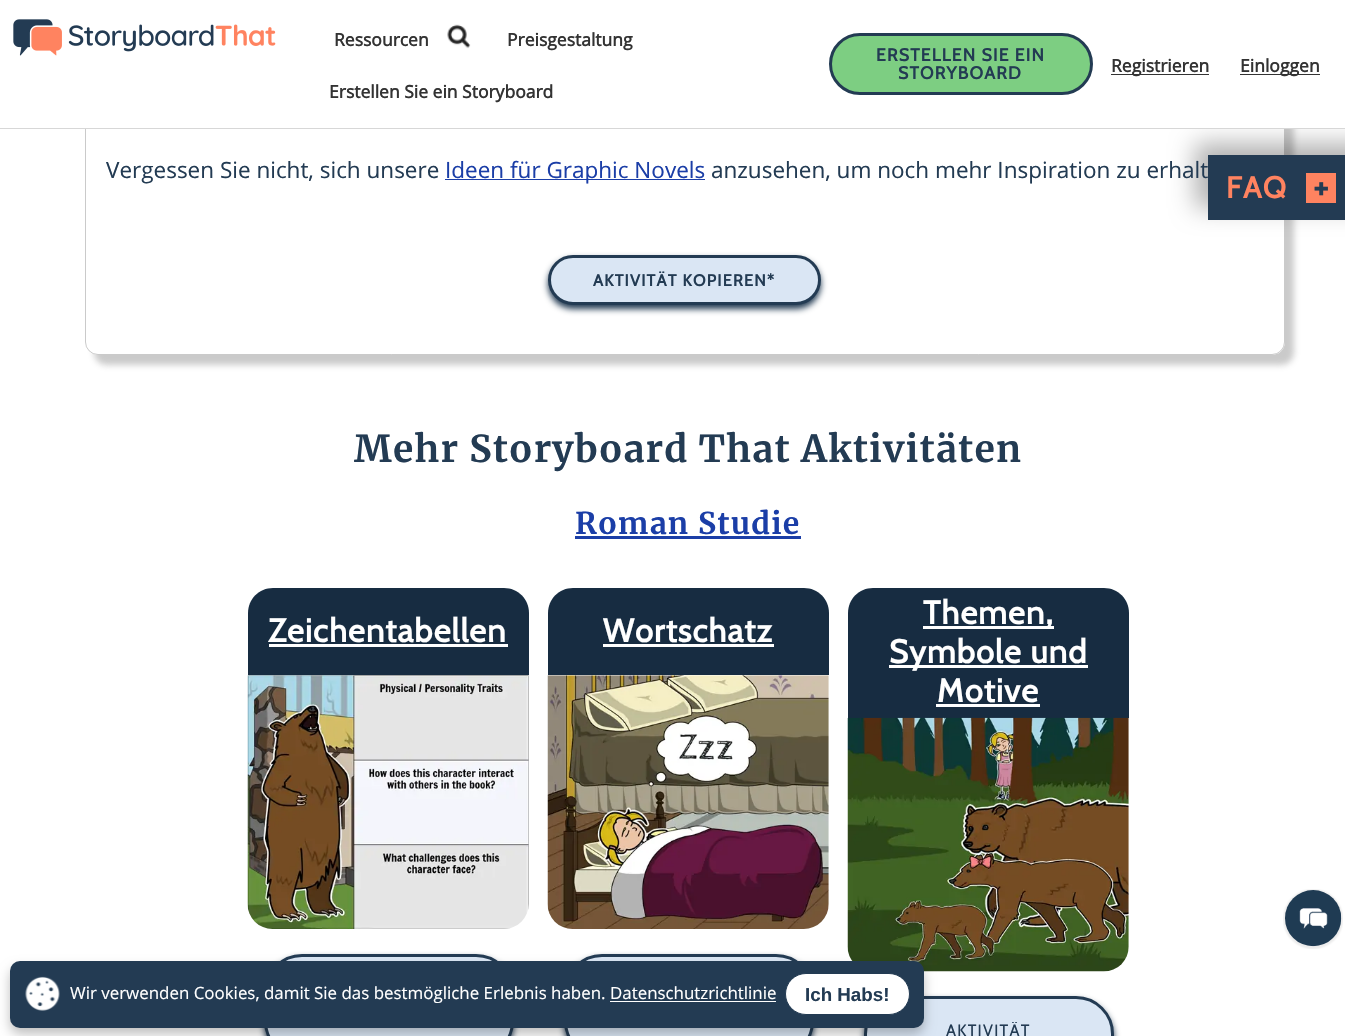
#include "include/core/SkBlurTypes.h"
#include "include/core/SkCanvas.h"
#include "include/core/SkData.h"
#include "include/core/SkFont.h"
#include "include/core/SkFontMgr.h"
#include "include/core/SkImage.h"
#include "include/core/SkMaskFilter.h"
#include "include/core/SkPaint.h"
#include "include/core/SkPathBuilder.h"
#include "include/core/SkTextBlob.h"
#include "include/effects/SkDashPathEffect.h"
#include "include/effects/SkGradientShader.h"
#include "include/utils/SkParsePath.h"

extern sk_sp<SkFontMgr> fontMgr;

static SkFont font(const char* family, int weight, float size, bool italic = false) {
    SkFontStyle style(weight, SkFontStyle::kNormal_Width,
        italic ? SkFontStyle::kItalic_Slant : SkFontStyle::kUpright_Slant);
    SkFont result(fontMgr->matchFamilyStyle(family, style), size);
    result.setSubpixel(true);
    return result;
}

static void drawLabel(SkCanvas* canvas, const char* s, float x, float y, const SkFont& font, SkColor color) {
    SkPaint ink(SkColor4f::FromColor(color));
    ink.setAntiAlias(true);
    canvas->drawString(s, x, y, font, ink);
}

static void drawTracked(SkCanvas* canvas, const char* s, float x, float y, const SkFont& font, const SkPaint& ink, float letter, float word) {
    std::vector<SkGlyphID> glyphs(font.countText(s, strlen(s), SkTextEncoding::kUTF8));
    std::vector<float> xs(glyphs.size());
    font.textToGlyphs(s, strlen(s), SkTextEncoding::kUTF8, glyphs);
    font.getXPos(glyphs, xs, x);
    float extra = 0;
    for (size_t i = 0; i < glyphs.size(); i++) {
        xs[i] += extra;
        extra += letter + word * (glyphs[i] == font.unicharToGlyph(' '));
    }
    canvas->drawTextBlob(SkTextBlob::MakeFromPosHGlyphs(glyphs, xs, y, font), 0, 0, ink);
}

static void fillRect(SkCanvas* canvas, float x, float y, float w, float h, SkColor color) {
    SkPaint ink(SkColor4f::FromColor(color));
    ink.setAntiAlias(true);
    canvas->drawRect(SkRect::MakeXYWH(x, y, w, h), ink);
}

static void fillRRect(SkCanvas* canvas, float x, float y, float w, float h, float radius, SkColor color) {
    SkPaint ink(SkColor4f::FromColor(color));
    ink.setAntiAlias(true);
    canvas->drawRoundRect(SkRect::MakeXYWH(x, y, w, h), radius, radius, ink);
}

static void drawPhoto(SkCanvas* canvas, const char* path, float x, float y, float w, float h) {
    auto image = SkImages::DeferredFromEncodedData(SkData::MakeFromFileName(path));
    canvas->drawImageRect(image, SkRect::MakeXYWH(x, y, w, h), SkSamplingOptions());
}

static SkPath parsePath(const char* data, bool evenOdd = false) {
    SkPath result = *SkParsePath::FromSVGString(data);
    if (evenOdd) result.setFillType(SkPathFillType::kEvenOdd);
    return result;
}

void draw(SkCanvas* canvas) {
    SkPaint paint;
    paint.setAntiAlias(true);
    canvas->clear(0xFFFFFFFF);
    paint.setColor(0x6B808080);
    paint.setMaskFilter(SkMaskFilter::MakeBlur(kNormal_SkBlurStyle, 3));
    canvas->drawRoundRect(SkRect::MakeXYWH(94, -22, 1200, 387), 13, 13, paint);
    paint.setMaskFilter(nullptr);
    fillRRect(canvas, 85, -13, 1200, 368, 13, 0xFFFFFFFF);
    paint.setStroke(true);
    paint.setStrokeWidth(1);
    canvas->drawRoundRect(SkRect::MakeXYWH(85.5f, -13.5f, 1199, 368), 12.5f, 12.5f, paint);
    paint.setStroke(false);
    paint.setColor(0x4D000000);
    paint.setMaskFilter(SkMaskFilter::MakeBlur(kNormal_SkBlurStyle, 12.5f));
    canvas->drawRect(SkRect::MakeXYWH(1195, 143, 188, 65), paint);
    paint.setMaskFilter(nullptr);
    fillRect(canvas, 85, 0, 1260, 128, 0xFFFFFFFF);
    fillRect(canvas, 0, 128, 1345, 1, 0xFFD7D7D7);
    drawPhoto(canvas, "assets/img1.png", 13, 19, 263, 37);
    SkFont font1 = font("Open Sans", 700, 17.5f);
    drawLabel(canvas, "Ressourcen", 334, 46, font1, 0xFF333333);
    drawPhoto(canvas, "assets/img2.png", 447, 24, 24, 25);
    drawLabel(canvas, "Preisgestaltung", 507, 46, font1, 0xFF333333);
    drawLabel(canvas, "Erstellen Sie ein Storyboard", 329, 98, font1, 0xFF333333);
    paint.setColor(0xFF7DCE82);
    canvas->drawRoundRect(SkRect::MakeXYWH(830.5f, 34.5f, 261, 59), 29.5f, 29.5f, paint);
    paint.setStroke(true);
    paint.setStrokeWidth(3);
    paint.setColor(0xFF233B53);
    canvas->drawRoundRect(SkRect::MakeXYWH(830.5f, 34.5f, 261, 59), 29.5f, 29.5f, paint);
    SkFont font2 = font("Cabin", 700, 17.5f);
    paint.setStroke(false);
    drawTracked(canvas, "ERSTELLEN SIE EIN", 876, 61, font2, paint, 1.25f, 0);
    drawTracked(canvas, "STORYBOARD", 898, 79, font2, paint, 1.25f, 0);
    fillRect(canvas, 1111, 74, 98, 1, 0xFF333333);
    drawLabel(canvas, "Registrieren", 1111, 72, font1, 0xFF333333);
    fillRect(canvas, 1240, 74, 80, 1, 0xFF333333);
    drawLabel(canvas, "Einloggen", 1240, 72, font1, 0xFF333333);
    SkFont font3 = font("Open Sans", 400, 22.5f);
    drawLabel(canvas, "Vergessen Sie nicht, sich unsere", 106, 178, font3, 0xFF233B53);
    fillRect(canvas, 445, 179, 260, 1, 0xFF1B3EA7);
    drawLabel(canvas, "Ideen für Graphic Novels", 445, 178, font3, 0xFF1B3EA7);
    drawLabel(canvas, "anzusehen, um noch mehr Inspiration zu erhalt", 711, 178, font3, 0xFF233B53);
    paint.setMaskFilter(SkMaskFilter::MakeBlur(kNormal_SkBlurStyle, 3));
    canvas->drawRoundRect(SkRect::MakeXYWH(548, 259, 273, 50), 25, 25, paint);
    paint.setMaskFilter(nullptr);
    paint.setColor(0xFFDAE6F4);
    canvas->drawRoundRect(SkRect::MakeXYWH(549.5f, 256.5f, 270, 47), 23.5f, 23.5f, paint);
    paint.setStroke(true);
    paint.setColor(0xFF233B53);
    canvas->drawRoundRect(SkRect::MakeXYWH(549.5f, 256.5f, 270, 47), 23.5f, 23.5f, paint);
    SkFont font4 = font("Cabin", 700, 16.25f);
    paint.setStroke(false);
    drawTracked(canvas, "AKTIVITÄT KOPIEREN*", 593, 286, font4, paint, 1.25f, 0);
    SkFont font5 = font("Merriweather", 700, 37);
    drawTracked(canvas, "Mehr Storyboard That Aktivitäten", 354, 462, font5, paint, 1.25f, 0);
    SkFont font6 = font("Merriweather", 700, 30);
    paint.setColor(0xFF1B3EA7);
    drawTracked(canvas, "Roman Studie", 575, 534, font6, paint, 1.25f, 0);
    fillRect(canvas, 575, 536, 226, 3, 0xFF1B3EA7);
    paint.setColor(0xFF172C41);
    canvas->drawPath(parsePath("M273 588H504C518 588 529 599 529 613V675H248V613C248 599 259 588 273 588Z"), paint);
    SkFont font7 = font("Cabin", 700, 32.5f);
    paint.setColor(0xFFFFFFFF);
    drawTracked(canvas, "Zeichentabellen", 268, 642, font7, paint, 1.25f, 0);
    fillRect(canvas, 269, 644, 239, 3, 0xFFFFFFFF);
    drawPhoto(canvas, "assets/img3.png", 247, 675, 282, 254);
    paint.setColor(0xFF233B53);
    paint.setMaskFilter(SkMaskFilter::MakeBlur(kNormal_SkBlurStyle, 3));
    canvas->drawRoundRect(SkRect::MakeXYWH(264, 958, 250, 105), 38, 38, paint);
    paint.setMaskFilter(nullptr);
    paint.setColor(0xFFDAE6F4);
    canvas->drawRoundRect(SkRect::MakeXYWH(265.5f, 955.5f, 247, 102), 36.5f, 36.5f, paint);
    paint.setStroke(true);
    paint.setColor(0xFF233B53);
    canvas->drawRoundRect(SkRect::MakeXYWH(265.5f, 955.5f, 247, 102), 36.5f, 36.5f, paint);
    paint.setStroke(false);
    paint.setColor(0xFF172C41);
    canvas->drawPath(parsePath("M573 588H804C818 588 829 599 829 613V675H548V613C548 599 559 588 573 588Z"), paint);
    paint.setColor(0xFFFFFFFF);
    drawTracked(canvas, "Wortschatz", 603, 642, font7, paint, 1.25f, 0);
    fillRect(canvas, 603, 644, 171, 3, 0xFFFFFFFF);
    drawPhoto(canvas, "assets/img4.png", 547, 675, 282, 254);
    paint.setColor(0xFF233B53);
    paint.setMaskFilter(SkMaskFilter::MakeBlur(kNormal_SkBlurStyle, 3));
    canvas->drawRoundRect(SkRect::MakeXYWH(564, 958, 250, 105), 38, 38, paint);
    paint.setMaskFilter(nullptr);
    paint.setColor(0xFFDAE6F4);
    canvas->drawRoundRect(SkRect::MakeXYWH(565.5f, 955.5f, 247, 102), 36.5f, 36.5f, paint);
    paint.setStroke(true);
    paint.setColor(0xFF233B53);
    canvas->drawRoundRect(SkRect::MakeXYWH(565.5f, 955.5f, 247, 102), 36.5f, 36.5f, paint);
    paint.setStroke(false);
    paint.setColor(0xFF172C41);
    canvas->drawPath(parsePath("M873 588H1104C1118 588 1129 599 1129 613V718H848V613C848 599 859 588 873 588Z"), paint);
    fillRect(canvas, 923, 626, 131, 3, 0xFFFFFFFF);
    paint.setColor(0xFFFFFFFF);
    drawTracked(canvas, "Themen,", 923, 624, font7, paint, 1.25f, 0);
    fillRect(canvas, 889, 665, 199, 3, 0xFFFFFFFF);
    drawTracked(canvas, "Symbole und", 889, 663, font7, paint, 1.25f, 0);
    drawTracked(canvas, "Motive", 937, 702, font7, paint, 1.25f, 0);
    fillRect(canvas, 936, 704, 104, 3, 0xFFFFFFFF);
    drawPhoto(canvas, "assets/img5.png", 847, 717, 282, 255);
    paint.setColor(0xFF233B53);
    paint.setMaskFilter(SkMaskFilter::MakeBlur(kNormal_SkBlurStyle, 3));
    canvas->drawRoundRect(SkRect::MakeXYWH(864, 1000, 250, 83), 38, 38, paint);
    paint.setMaskFilter(nullptr);
    paint.setColor(0xFFDAE6F4);
    canvas->drawRoundRect(SkRect::MakeXYWH(865.5f, 997.5f, 247, 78), 36.5f, 36.5f, paint);
    paint.setStroke(true);
    paint.setColor(0xFF233B53);
    canvas->drawRoundRect(SkRect::MakeXYWH(865.5f, 997.5f, 247, 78), 36.5f, 36.5f, paint);
    SkFont font8 = font("Cabin", 400, 16.25f);
    paint.setStroke(false);
    drawTracked(canvas, "AKTIVITÄT", 946, 1036, font8, paint, 1.25f, 0);
    fillRect(canvas, 1208, 155, 137, 65, 0xFF233B53);
    SkFont font9 = font("Cabin", 700, 30);
    paint.setColor(0xFFFF8360);
    drawTracked(canvas, "FAQ", 1226, 198, font9, paint, 1.25f, 0);
    fillRect(canvas, 1306, 173, 30, 30, 0xFFFF8360);
    SkFont font10 = font("Cabin", 700, 35);
    paint.setColor(0xFF233B53);
    drawTracked(canvas, "+", 1313, 199, font10, paint, 1.25f, 0);
    drawPhoto(canvas, "assets/img6.png", 1283, 889, 60, 60);
    paint.setColor(0x40000000);
    paint.setMaskFilter(SkMaskFilter::MakeBlur(kNormal_SkBlurStyle, 6));
    canvas->drawRoundRect(SkRect::MakeXYWH(10, 968, 914, 66), 10, 10, paint);
    paint.setMaskFilter(nullptr);
    fillRRect(canvas, 10, 961, 914, 67, 10, 0xFF233B53);
    drawPhoto(canvas, "assets/img7.png", 25, 976, 35, 35);
    SkFont font11 = font("Open Sans", 400, 16.9f);
    drawLabel(canvas, "Wir verwenden Cookies, damit Sie das bestmögliche Erlebnis haben. Datenschutzrichtlinie", 70, 999, font11, 0xFFFFFFFF);
    fillRect(canvas, 610, 1001, 166, 1, 0xFFFFFFFF);
    paint.setColor(0xFFFFFFFF);
    canvas->drawRoundRect(SkRect::MakeXYWH(785.5f, 973.5f, 124, 41), 20.5f, 20.5f, paint);
    paint.setStroke(true);
    paint.setStrokeWidth(1);
    paint.setColor(0xFF233B53);
    canvas->drawRoundRect(SkRect::MakeXYWH(785.5f, 973.5f, 124, 41), 20.5f, 20.5f, paint);
    SkFont font12 = font("Liberation Sans", 700, 18.75f);
    drawLabel(canvas, "Ich Habs!", 805, 1001, font12, 0xFF233B53);
}
